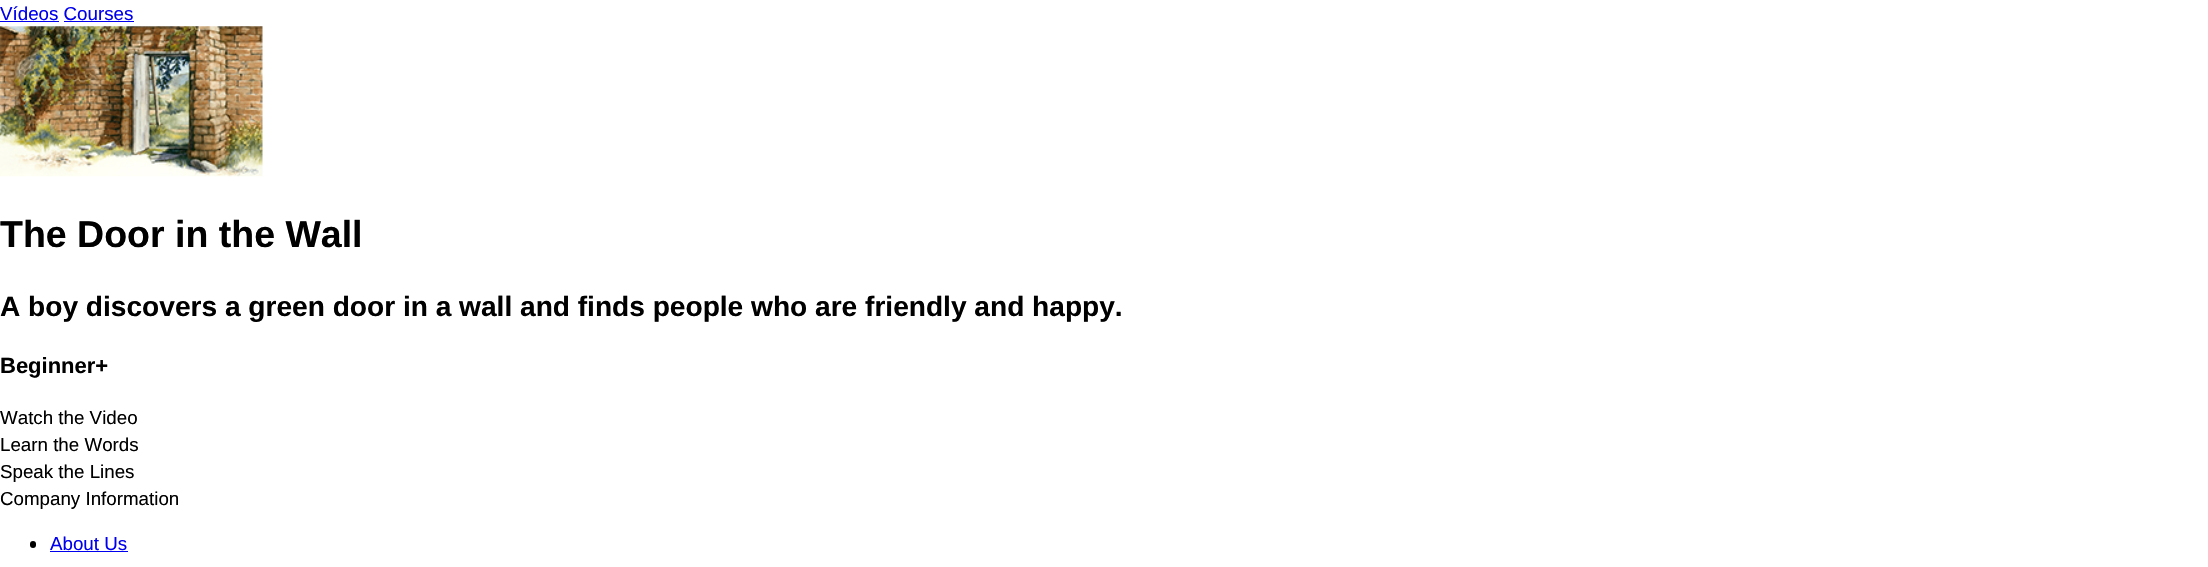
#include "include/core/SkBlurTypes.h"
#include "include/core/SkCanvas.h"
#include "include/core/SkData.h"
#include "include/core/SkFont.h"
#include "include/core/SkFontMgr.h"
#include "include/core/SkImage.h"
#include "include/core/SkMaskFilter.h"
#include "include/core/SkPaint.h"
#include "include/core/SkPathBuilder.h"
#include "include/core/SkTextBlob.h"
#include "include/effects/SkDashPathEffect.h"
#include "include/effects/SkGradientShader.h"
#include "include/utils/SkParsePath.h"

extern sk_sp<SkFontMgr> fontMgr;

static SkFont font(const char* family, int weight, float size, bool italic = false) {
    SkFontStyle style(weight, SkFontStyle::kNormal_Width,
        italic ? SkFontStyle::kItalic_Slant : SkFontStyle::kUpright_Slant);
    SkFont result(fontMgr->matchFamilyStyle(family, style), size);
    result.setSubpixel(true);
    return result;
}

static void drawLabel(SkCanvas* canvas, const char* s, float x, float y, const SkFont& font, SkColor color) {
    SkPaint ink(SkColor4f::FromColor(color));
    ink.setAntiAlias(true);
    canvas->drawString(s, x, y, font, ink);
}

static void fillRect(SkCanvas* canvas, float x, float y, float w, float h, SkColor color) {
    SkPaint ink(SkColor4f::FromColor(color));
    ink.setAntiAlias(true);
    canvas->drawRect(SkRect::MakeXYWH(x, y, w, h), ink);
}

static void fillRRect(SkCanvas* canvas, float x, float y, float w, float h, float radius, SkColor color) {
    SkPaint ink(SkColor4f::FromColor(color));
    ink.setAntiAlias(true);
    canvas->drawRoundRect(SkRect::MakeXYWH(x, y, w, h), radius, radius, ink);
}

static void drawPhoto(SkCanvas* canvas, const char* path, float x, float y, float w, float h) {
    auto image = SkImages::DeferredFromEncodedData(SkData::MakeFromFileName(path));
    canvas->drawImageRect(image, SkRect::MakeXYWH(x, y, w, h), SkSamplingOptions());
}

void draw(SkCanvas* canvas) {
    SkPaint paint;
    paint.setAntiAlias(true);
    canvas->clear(0xFFFFFFFF);
    SkFont font1 = font("Liberation Sans", 400, 18.75f);
    drawLabel(canvas, "Vídeos Courses", 0, 20, font1, 0xFF0000EE);
    fillRect(canvas, 0, 21, 59, 1, 0xFF0000EE);
    fillRect(canvas, 64, 21, 70, 1, 0xFF0000EE);
    drawPhoto(canvas, "assets/img1.png", 0, 26, 263, 151);
    SkFont font2 = font("Liberation Sans", 700, 37.5f);
    drawLabel(canvas, "The Door in the Wall", 0, 247, font2, 0xFF000000);
    SkFont font3 = font("Liberation Sans", 700, 28.1f);
    drawLabel(canvas, "A boy discovers a green door in a wall and finds people who are friendly and happy.", 0, 316, font3, 0xFF000000);
    SkFont font4 = font("Liberation Sans", 700, 22);
    drawLabel(canvas, "Beginner+", 0, 373, font4, 0xFF000000);
    drawLabel(canvas, "Watch the Video", 0, 424, font1, 0xFF000000);
    drawLabel(canvas, "Learn the Words", 0, 451, font1, 0xFF000000);
    drawLabel(canvas, "Speak the Lines", 0, 478, font1, 0xFF000000);
    drawLabel(canvas, "Company Information", 0, 505, font1, 0xFF000000);
    fillRRect(canvas, 30, 541, 6, 7, 3, 0xFF000000);
    drawLabel(canvas, "About Us", 50, 550, font1, 0xFF0000EE);
    fillRect(canvas, 50, 551, 78, 1, 0xFF0000EE);
}
